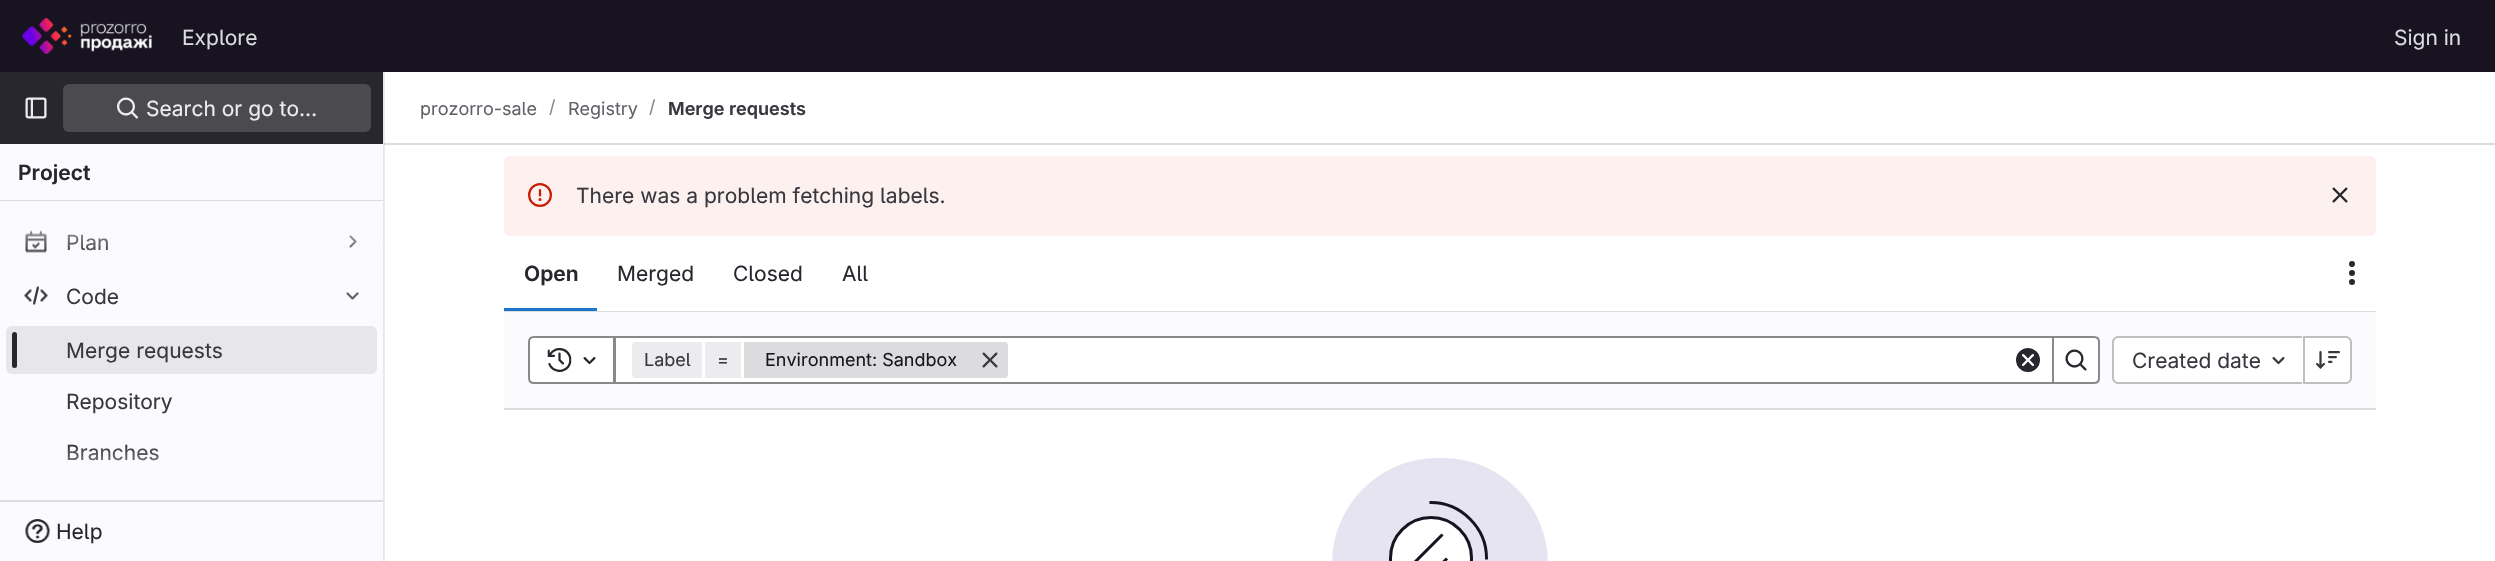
#include "include/core/SkBlurTypes.h"
#include "include/core/SkCanvas.h"
#include "include/core/SkData.h"
#include "include/core/SkFont.h"
#include "include/core/SkFontMgr.h"
#include "include/core/SkImage.h"
#include "include/core/SkMaskFilter.h"
#include "include/core/SkPaint.h"
#include "include/core/SkPathBuilder.h"
#include "include/core/SkTextBlob.h"
#include "include/effects/SkDashPathEffect.h"
#include "include/effects/SkGradientShader.h"
#include "include/utils/SkParsePath.h"

extern sk_sp<SkFontMgr> fontMgr;

static SkFont font(const char* family, int weight, float size, bool italic = false) {
    SkFontStyle style(weight, SkFontStyle::kNormal_Width,
        italic ? SkFontStyle::kItalic_Slant : SkFontStyle::kUpright_Slant);
    SkFont result(fontMgr->matchFamilyStyle(family, style), size);
    result.setSubpixel(true);
    return result;
}

static void drawLabel(SkCanvas* canvas, const char* s, float x, float y, const SkFont& font, SkColor color) {
    SkPaint ink(SkColor4f::FromColor(color));
    ink.setAntiAlias(true);
    canvas->drawString(s, x, y, font, ink);
}

static void fillRect(SkCanvas* canvas, float x, float y, float w, float h, SkColor color) {
    SkPaint ink(SkColor4f::FromColor(color));
    ink.setAntiAlias(true);
    canvas->drawRect(SkRect::MakeXYWH(x, y, w, h), ink);
}

static void fillRRect(SkCanvas* canvas, float x, float y, float w, float h, float radius, SkColor color) {
    SkPaint ink(SkColor4f::FromColor(color));
    ink.setAntiAlias(true);
    canvas->drawRoundRect(SkRect::MakeXYWH(x, y, w, h), radius, radius, ink);
}

static void drawPhoto(SkCanvas* canvas, const char* path, float x, float y, float w, float h) {
    auto image = SkImages::DeferredFromEncodedData(SkData::MakeFromFileName(path));
    canvas->drawImageRect(image, SkRect::MakeXYWH(x, y, w, h), SkSamplingOptions());
}

static SkPath parsePath(const char* data, bool evenOdd = false) {
    SkPath result = *SkParsePath::FromSVGString(data);
    if (evenOdd) result.setFillType(SkPathFillType::kEvenOdd);
    return result;
}

void draw(SkCanvas* canvas) {
    SkPaint paint;
    paint.setAntiAlias(true);
    canvas->clear(0xFFFFFFFF);
    fillRect(canvas, 384, 72, 1, 489, 0xFFEBEBEB);
    fillRect(canvas, 0, 0, 2495, 72, 0xFF171321);
    drawPhoto(canvas, "assets/img1.png", 22, 18, 130, 36);
    SkFont font1 = font("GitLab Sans", 400, 21);
    drawLabel(canvas, "Explore", 182, 45, font1, 0xFFDCDCDE);
    drawLabel(canvas, "Sign in", 2394, 45, font1, 0xFFDCDCDE);
    fillRect(canvas, 0, 144, 383, 417, 0xFFFBFAFD);
    fillRect(canvas, 383, 72, 1, 489, 0xFFE7E6E9);
    fillRect(canvas, 0, 72, 383, 72, 0xFF28272D);
    drawPhoto(canvas, "assets/img2.png", 25, 97, 22, 22);
    fillRRect(canvas, 63, 84, 308, 48, 6, 0xFF4A4A4F);
    drawPhoto(canvas, "assets/img3.png", 117, 97, 21, 22);
    drawLabel(canvas, "Search or go to…", 146, 116, font1, 0xFFECECEF);
    SkFont font2 = font("GitLab Sans", 600, 21);
    drawLabel(canvas, "Project", 18, 180, font2, 0xFF28272D);
    fillRect(canvas, 0, 200, 383, 2, 0xFFDCDCDE);
    fillRect(canvas, 0, 500, 383, 2, 0xFFDCDCDE);
    drawPhoto(canvas, "assets/img4.png", 25, 230, 22, 23);
    drawLabel(canvas, "Plan", 66, 250, font1, 0xFF3A383F);
    paint.setStroke(true);
    paint.setStrokeWidth(2.2f);
    paint.setStrokeCap(SkPaint::kRound_Cap);
    paint.setStrokeJoin(SkPaint::kRound_Join);
    paint.setColor(0xFF626168);
    canvas->drawPath(parsePath("M350.5 236.5L355.5 241.5L350.5 246.5"), paint);
    paint.setStroke(false);
    {
        const SkColor colors[] = {0xFFFBFAFD, 0x00FBFAFD};
        const float stops[] = {0, 1};
        const SkPoint ends[] = {{191, 201}, {191, 255}};
        paint.setShader(SkGradientShader::MakeLinear(ends, colors, stops, 2, SkTileMode::kClamp));
        paint.setAlpha(255);
    }
    canvas->drawRect(SkRect::MakeXYWH(0, 201, 383, 51), paint);
    drawPhoto(canvas, "assets/img5.png", 24, 286, 24, 19);
    drawLabel(canvas, "Code", 66, 304, font1, 0xFF3A383F);
    paint.setStroke(true);
    paint.setShader(nullptr);
    paint.setColor(0xFF626168);
    canvas->drawPath(parsePath("M357.5 293.5L352.5 298.5L347.5 293.5"), paint);
    fillRRect(canvas, 6, 326, 371, 48, 6, 0xFFE7E6E9);
    fillRRect(canvas, 12, 332, 5, 36, 2.5f, 0xFF28272D);
    drawLabel(canvas, "Merge requests", 66, 358, font1, 0xFF3A383F);
    drawLabel(canvas, "Repository", 66, 409, font1, 0xFF3A383F);
    drawLabel(canvas, "Branches", 66, 460, font1, 0xFF3A383F);
    paint.setStroke(false);
    {
        const SkColor colors[] = {0x00FBFAFD, 0xFFFBFAFD};
        const float stops[] = {0, 1};
        const SkPoint ends[] = {{191, 446}, {191, 500}};
        paint.setShader(SkGradientShader::MakeLinear(ends, colors, stops, 2, SkTileMode::kClamp));
        paint.setAlpha(255);
    }
    canvas->drawRect(SkRect::MakeXYWH(67, 447, 92, 14), paint);
    drawPhoto(canvas, "assets/img6.png", 25, 519, 25, 24);
    drawLabel(canvas, "Help", 56, 539, font1, 0xFF28272D);
    fillRect(canvas, 384, 143, 2111, 2, 0xFFDCDCDE);
    fillRect(canvas, 384, 143, 1, 2, 0xFFCBCBCD);
    SkFont font3 = font("GitLab Sans", 400, 18);
    drawLabel(canvas, "prozorro-sale", 420, 115, font3, 0xFF626168);
    drawLabel(canvas, "/", 549, 113, font3, 0xFF89888D);
    drawLabel(canvas, "Registry", 568, 115, font3, 0xFF626168);
    drawLabel(canvas, "/", 649, 113, font3, 0xFF89888D);
    SkFont font4 = font("GitLab Sans", 600, 18);
    drawLabel(canvas, "Merge requests", 668, 115, font4, 0xFF3A383F);
    fillRRect(canvas, 504, 156, 1872, 80, 6, 0xFFFCF1EF);
    drawPhoto(canvas, "assets/img7.png", 528, 183, 24, 24);
    drawLabel(canvas, "There was a problem fetching labels.", 576, 203, font1, 0xFF3A383F);
    drawPhoto(canvas, "assets/img8.png", 2332, 187, 16, 16);
    fillRect(canvas, 504, 311, 1872, 1, 0xFFDCDCDE);
    drawLabel(canvas, "Open", 524, 281, font2, 0xFF28272D);
    fillRect(canvas, 504, 308, 93, 3, 0xFF1F75CB);
    drawLabel(canvas, "Merged", 617, 281, font1, 0xFF28272D);
    drawLabel(canvas, "Closed", 733, 281, font1, 0xFF28272D);
    drawLabel(canvas, "All", 842, 281, font1, 0xFF28272D);
    drawPhoto(canvas, "assets/img9.png", 2349, 261, 6, 24);
    fillRect(canvas, 504, 312, 1872, 96, 0xFFFBFAFD);
    fillRect(canvas, 504, 408, 1872, 2, 0xFFDCDCDE);
    paint.setShader(nullptr);
    paint.setColor(0xFFFFFFFF);
    canvas->drawRect(SkRect::MakeXYWH(615, 337, 1438, 46), paint);
    paint.setStroke(true);
    paint.setStrokeWidth(2);
    paint.setStrokeCap(SkPaint::kButt_Cap);
    paint.setStrokeJoin(SkPaint::kMiter_Join);
    paint.setColor(0xFF89888D);
    canvas->drawRect(SkRect::MakeXYWH(615, 337, 1438, 46), paint);
    paint.setStroke(false);
    paint.setColor(0xFFFFFFFF);
    canvas->drawPath(parsePath("M534 337H614V383H534C531 383 529 381 529 378V342C529 339 531 337 534 337Z"), paint);
    paint.setStroke(true);
    paint.setColor(0xFF89888D);
    canvas->drawPath(parsePath("M534 337H614V383H534C531 383 529 381 529 378V342C529 339 531 337 534 337Z"), paint);
    drawPhoto(canvas, "assets/img10.png", 547, 348, 25, 24);
    drawPhoto(canvas, "assets/img11.png", 583, 357, 13, 8);
    paint.setStroke(false);
    paint.setColor(0xFFECECEF);
    canvas->drawPath(parsePath("M635 342H702V378H635C633.5 378 632 376.5 632 375V345C632 343.5 633.5 342 635 342Z"), paint);
    drawLabel(canvas, "Label", 644, 366, font3, 0xFF3A383F);
    fillRect(canvas, 705, 342, 36, 36, 0xFFECECEF);
    drawLabel(canvas, "=", 717, 366, font3, 0xFF3A383F);
    paint.setColor(0xFFDCDCDE);
    canvas->drawPath(parsePath("M744 342H1005C1006.5 342 1008 343.5 1008 345V375C1008 376.5 1006.5 378 1005 378H744Z"), paint);
    drawLabel(canvas, "Environment: Sandbox", 765, 366, font3, 0xFF18171D);
    drawPhoto(canvas, "assets/img12.png", 982, 352, 16, 16);
    drawPhoto(canvas, "assets/img13.png", 2016, 348, 24, 24);
    paint.setColor(0xFFFFFFFF);
    canvas->drawPath(parsePath("M2053 337H2094C2097 337 2099 339 2099 342V378C2099 381 2097 383 2094 383H2053Z"), paint);
    paint.setStroke(true);
    paint.setColor(0xFF89888D);
    canvas->drawPath(parsePath("M2053 337H2094C2097 337 2099 339 2099 342V378C2099 381 2097 383 2094 383H2053Z"), paint);
    drawPhoto(canvas, "assets/img14.png", 2065, 349, 22, 22);
    paint.setStroke(false);
    paint.setColor(0xFFFFFFFF);
    canvas->drawPath(parsePath("M2119 338H2303V383H2119C2116 383 2114 381 2114 378V343C2114 340 2116 338 2119 338Z"), paint);
    paint.setColor(0xFFBFBFC3);
    canvas->drawPath(parsePath("M2118 336H2302V384H2118C2115 384 2112 381 2112 378V342C2112 339 2115 336 2118 336ZM2118 338H2302V382H2118C2116 382 2114 380 2114 378V342C2114 340 2116 338 2118 338Z", true), paint);
    drawLabel(canvas, "Created date", 2132, 368, font1, 0xFF3A383F);
    drawPhoto(canvas, "assets/img15.png", 2272, 357, 13, 8);
    paint.setColor(0xFFFFFFFF);
    canvas->drawPath(parsePath("M2304 338H2346C2349 338 2351 340 2351 343V378C2351 381 2349 383 2346 383H2304Z"), paint);
    paint.setColor(0xFFBFBFC3);
    canvas->drawPath(parsePath("M2304 336H2346C2349 336 2352 339 2352 342V378C2352 381 2349 384 2346 384H2304ZM2304 338H2346C2348 338 2350 340 2350 342V378C2350 380 2348 382 2346 382H2304Z", true), paint);
    fillRect(canvas, 2303, 336, 2, 48, 0xFFBFBFC3);
    drawPhoto(canvas, "assets/img16.png", 2316, 351, 24, 18);
    fillRRect(canvas, 1332, 458, 216, 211, 108, 0xFFE7E4F2);
    paint.setColor(0xFFFFFFFF);
    canvas->drawCircle(1431, 558, 40.5f, paint);
    paint.setStroke(true);
    paint.setStrokeWidth(3);
    paint.setColor(0xFF171321);
    canvas->drawCircle(1431, 558, 40.5f, paint);
    paint.setStrokeCap(SkPaint::kSquare_Cap);
    canvas->drawPath(parsePath("M1431 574.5L1446 559.5M1410 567L1441.5 535.5M1486.5 558C1486.5 528 1461 502.5 1431 502.5"), paint);
}
